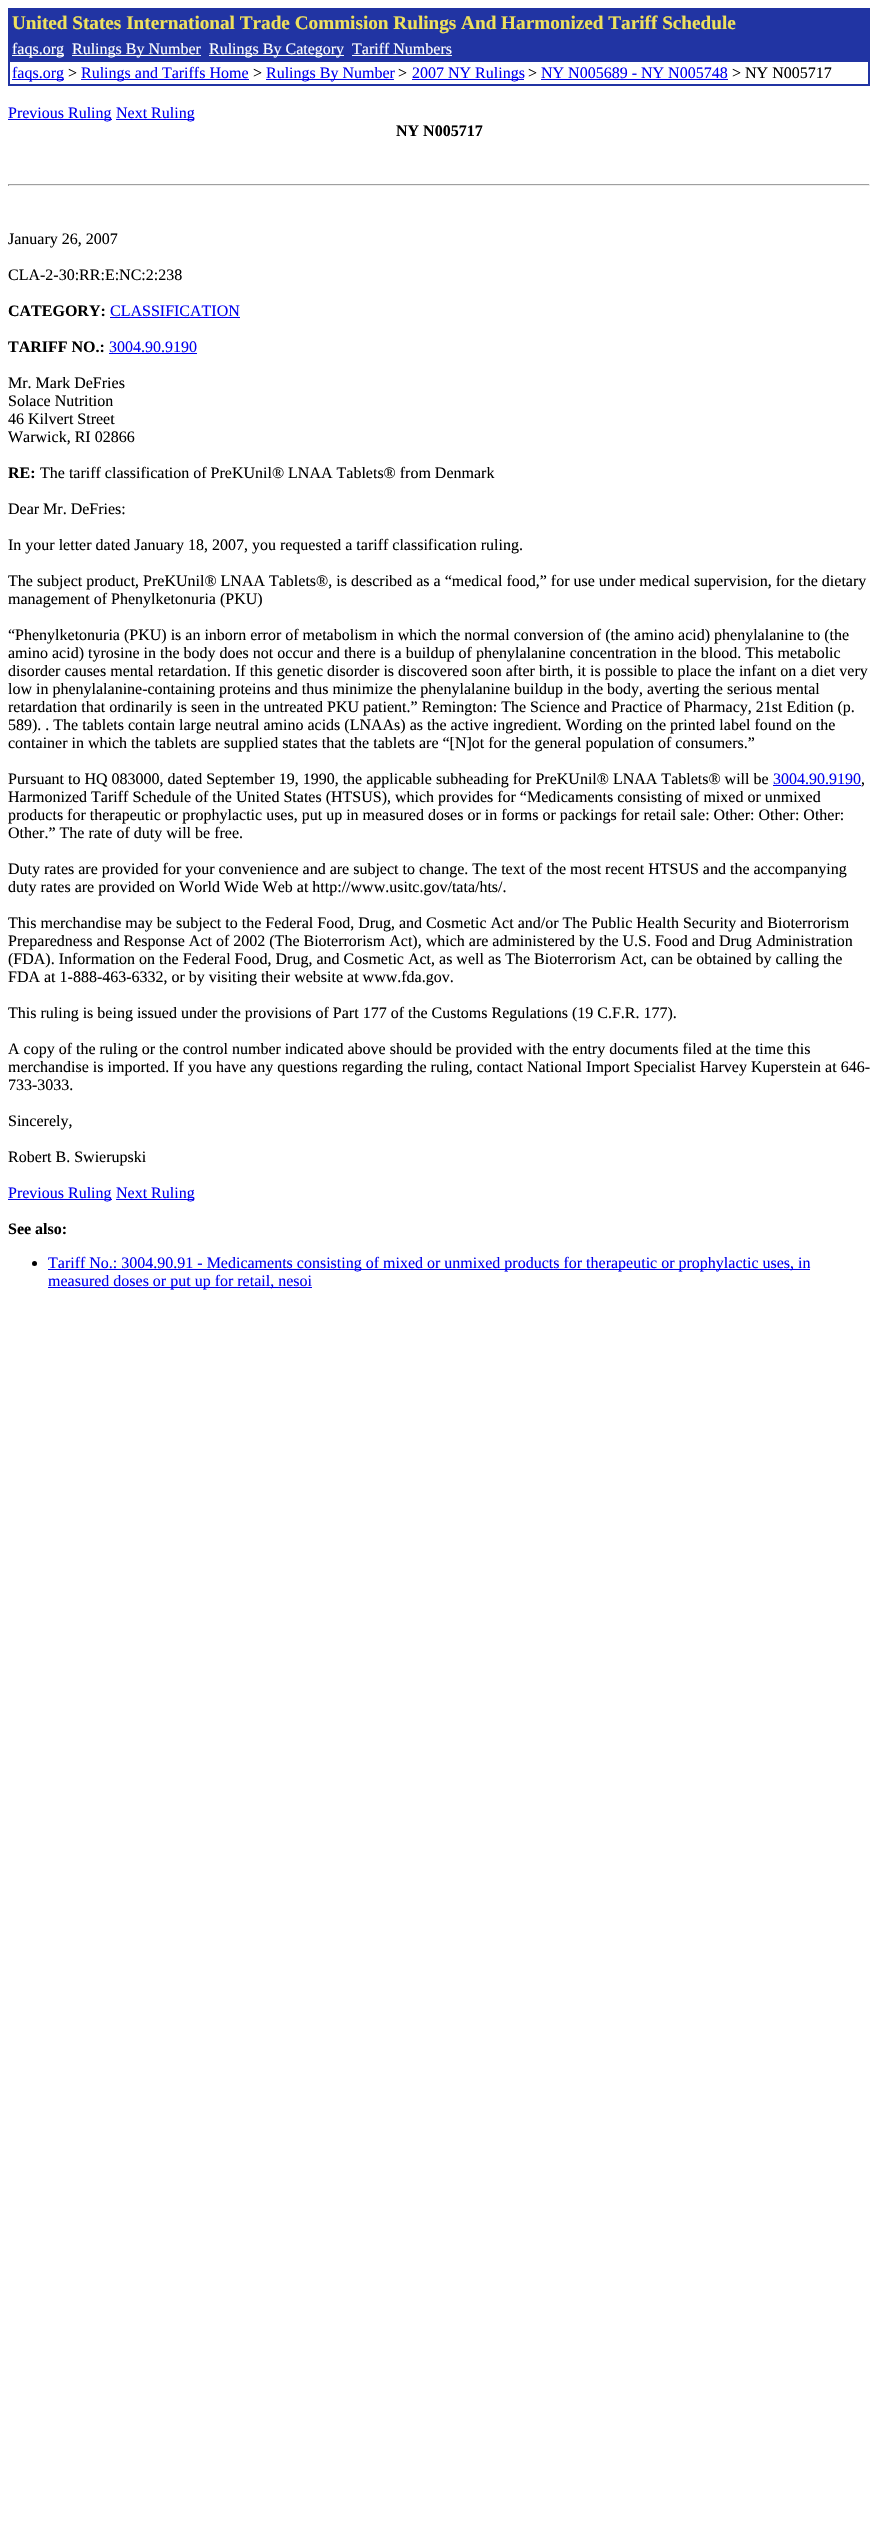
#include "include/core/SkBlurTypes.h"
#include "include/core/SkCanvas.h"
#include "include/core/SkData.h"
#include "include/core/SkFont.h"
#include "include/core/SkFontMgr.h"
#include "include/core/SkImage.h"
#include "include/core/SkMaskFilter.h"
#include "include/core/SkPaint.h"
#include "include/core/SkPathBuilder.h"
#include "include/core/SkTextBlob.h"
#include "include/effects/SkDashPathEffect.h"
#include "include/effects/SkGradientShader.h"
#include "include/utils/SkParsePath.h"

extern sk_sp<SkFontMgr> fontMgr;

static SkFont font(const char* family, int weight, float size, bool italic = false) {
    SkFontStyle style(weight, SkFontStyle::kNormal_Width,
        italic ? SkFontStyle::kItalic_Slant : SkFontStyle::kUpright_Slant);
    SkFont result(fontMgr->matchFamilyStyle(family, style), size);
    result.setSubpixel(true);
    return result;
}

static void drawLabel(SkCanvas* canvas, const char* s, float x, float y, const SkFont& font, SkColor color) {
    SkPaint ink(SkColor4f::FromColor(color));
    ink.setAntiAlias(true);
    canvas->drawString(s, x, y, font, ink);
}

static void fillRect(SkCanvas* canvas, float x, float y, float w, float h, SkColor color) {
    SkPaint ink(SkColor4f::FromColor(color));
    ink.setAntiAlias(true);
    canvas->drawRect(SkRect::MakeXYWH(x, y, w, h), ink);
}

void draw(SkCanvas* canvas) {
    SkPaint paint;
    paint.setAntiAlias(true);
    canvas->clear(0xFFFFFFFF);
    fillRect(canvas, 8, 8, 862, 78, 0xFF2134A3);
    SkFont font1 = font("Liberation Serif", 700, 19.2f);
    drawLabel(canvas, "United States International Trade Commision Rulings And Harmonized Tariff Schedule", 12, 29, font1, 0xFFEFE15D);
    fillRect(canvas, 12, 55, 52, 1, 0xFFFFFFFF);
    SkFont font2 = font("Liberation Serif", 400, 16);
    drawLabel(canvas, "faqs.org", 12, 54, font2, 0xFFFFFFFF);
    fillRect(canvas, 72, 55, 129, 1, 0xFFFFFFFF);
    drawLabel(canvas, "Rulings By Number", 72, 54, font2, 0xFFFFFFFF);
    fillRect(canvas, 209, 55, 135, 1, 0xFFFFFFFF);
    drawLabel(canvas, "Rulings By Category", 209, 54, font2, 0xFFFFFFFF);
    drawLabel(canvas, "Tariff Numbers", 352, 54, font2, 0xFFFFFFFF);
    fillRect(canvas, 352, 55, 100, 1, 0xFFFFFFFF);
    fillRect(canvas, 10, 62, 858, 22, 0xFFFFFFFF);
    fillRect(canvas, 12, 79, 52, 1, 0xFF0000EE);
    drawLabel(canvas, "faqs.org", 12, 78, font2, 0xFF0000EE);
    drawLabel(canvas, ">", 68, 78, font2, 0xFF000000);
    fillRect(canvas, 81, 79, 168, 1, 0xFF0000EE);
    drawLabel(canvas, "Rulings and Tariffs Home", 81, 78, font2, 0xFF0000EE);
    drawLabel(canvas, ">", 253, 78, font2, 0xFF000000);
    fillRect(canvas, 266, 79, 128, 1, 0xFF0000EE);
    drawLabel(canvas, "Rulings By Number", 266, 78, font2, 0xFF0000EE);
    drawLabel(canvas, ">", 398, 78, font2, 0xFF000000);
    fillRect(canvas, 412, 79, 112, 1, 0xFF0000EE);
    drawLabel(canvas, "2007 NY Rulings", 412, 78, font2, 0xFF0000EE);
    drawLabel(canvas, ">", 528, 78, font2, 0xFF000000);
    drawLabel(canvas, "NY N005689 - NY N005748", 541, 78, font2, 0xFF0000EE);
    fillRect(canvas, 541, 79, 187, 1, 0xFF0000EE);
    drawLabel(canvas, "> NY N005717", 732, 78, font2, 0xFF000000);
    fillRect(canvas, 8, 119, 104, 1, 0xFF0000EE);
    drawLabel(canvas, "Previous Ruling", 8, 118, font2, 0xFF0000EE);
    fillRect(canvas, 116, 119, 78, 1, 0xFF0000EE);
    drawLabel(canvas, "Next Ruling", 116, 118, font2, 0xFF0000EE);
    SkFont font3 = font("Liberation Serif", 700, 16);
    drawLabel(canvas, "NY N005717", 396, 136, font3, 0xFF000000);
    fillRect(canvas, 8, 184, 862, 1, 0xFF9F9F9F);
    fillRect(canvas, 869, 184, 1, 2, 0xFFEEEEEE);
    fillRect(canvas, 8, 185, 862, 1, 0xFFEEEEEE);
    fillRect(canvas, 8, 184, 1, 2, 0xFF9F9F9F);
    drawLabel(canvas, "January 26, 2007", 8, 244, font2, 0xFF000000);
    drawLabel(canvas, "CLA-2-30:RR:E:NC:2:238", 8, 280, font2, 0xFF000000);
    drawLabel(canvas, "CATEGORY:", 8, 316, font3, 0xFF000000);
    drawLabel(canvas, "CLASSIFICATION", 110, 316, font2, 0xFF0000EE);
    fillRect(canvas, 110, 317, 130, 1, 0xFF0000EE);
    drawLabel(canvas, "TARIFF NO.:", 8, 352, font3, 0xFF000000);
    drawLabel(canvas, "3004.90.9190", 109, 352, font2, 0xFF0000EE);
    fillRect(canvas, 109, 353, 88, 1, 0xFF0000EE);
    drawLabel(canvas, "Mr. Mark DeFries", 8, 388, font2, 0xFF000000);
    drawLabel(canvas, "Solace Nutrition", 8, 406, font2, 0xFF000000);
    drawLabel(canvas, "46 Kilvert Street", 8, 424, font2, 0xFF000000);
    drawLabel(canvas, "Warwick, RI 02866", 8, 442, font2, 0xFF000000);
    drawLabel(canvas, "RE:", 8, 478, font3, 0xFF000000);
    drawLabel(canvas, "The tariff classification of PreKUnil® LNAA Tablets® from Denmark", 40, 478, font2, 0xFF000000);
    drawLabel(canvas, "Dear Mr. DeFries:", 8, 514, font2, 0xFF000000);
    drawLabel(canvas, "In your letter dated January 18, 2007, you requested a tariff classification ruling.", 8, 550, font2, 0xFF000000);
    drawLabel(canvas, "The subject product, PreKUnil® LNAA Tablets®, is described as a “medical food,” for use under medical supervision, for the dietary", 8, 586, font2, 0xFF000000);
    drawLabel(canvas, "management of Phenylketonuria (PKU)", 8, 604, font2, 0xFF000000);
    drawLabel(canvas, "“Phenylketonuria (PKU) is an inborn error of metabolism in which the normal conversion of (the amino acid) phenylalanine to (the", 8, 640, font2, 0xFF000000);
    drawLabel(canvas, "amino acid) tyrosine in the body does not occur and there is a buildup of phenylalanine concentration in the blood. This metabolic", 8, 658, font2, 0xFF000000);
    drawLabel(canvas, "disorder causes mental retardation. If this genetic disorder is discovered soon after birth, it is possible to place the infant on a diet very", 8, 676, font2, 0xFF000000);
    drawLabel(canvas, "low in phenylalanine-containing proteins and thus minimize the phenylalanine buildup in the body, averting the serious mental", 8, 694, font2, 0xFF000000);
    drawLabel(canvas, "retardation that ordinarily is seen in the untreated PKU patient.” Remington: The Science and Practice of Pharmacy, 21st Edition (p.", 8, 712, font2, 0xFF000000);
    drawLabel(canvas, "589). . The tablets contain large neutral amino acids (LNAAs) as the active ingredient. Wording on the printed label found on the", 8, 730, font2, 0xFF000000);
    drawLabel(canvas, "container in which the tablets are supplied states that the tablets are “[N]ot for the general population of consumers.”", 8, 748, font2, 0xFF000000);
    drawLabel(canvas, "Pursuant to HQ 083000, dated September 19, 1990, the applicable subheading for PreKUnil® LNAA Tablets® will be", 8, 784, font2, 0xFF000000);
    drawLabel(canvas, "3004.90.9190", 773, 784, font2, 0xFF0000EE);
    fillRect(canvas, 773, 785, 88, 1, 0xFF0000EE);
    drawLabel(canvas, ",", 861, 784, font2, 0xFF000000);
    drawLabel(canvas, "Harmonized Tariff Schedule of the United States (HTSUS), which provides for “Medicaments consisting of mixed or unmixed", 8, 802, font2, 0xFF000000);
    drawLabel(canvas, "products for therapeutic or prophylactic uses, put up in measured doses or in forms or packings for retail sale: Other: Other: Other:", 8, 820, font2, 0xFF000000);
    drawLabel(canvas, "Other.” The rate of duty will be free.", 8, 838, font2, 0xFF000000);
    drawLabel(canvas, "Duty rates are provided for your convenience and are subject to change. The text of the most recent HTSUS and the accompanying", 8, 874, font2, 0xFF000000);
    drawLabel(canvas, "duty rates are provided on World Wide Web at http://www.usitc.gov/tata/hts/.", 8, 892, font2, 0xFF000000);
    drawLabel(canvas, "This merchandise may be subject to the Federal Food, Drug, and Cosmetic Act and/or The Public Health Security and Bioterrorism", 8, 928, font2, 0xFF000000);
    drawLabel(canvas, "Preparedness and Response Act of 2002 (The Bioterrorism Act), which are administered by the U.S. Food and Drug Administration", 8, 946, font2, 0xFF000000);
    drawLabel(canvas, "(FDA). Information on the Federal Food, Drug, and Cosmetic Act, as well as The Bioterrorism Act, can be obtained by calling the", 8, 964, font2, 0xFF000000);
    drawLabel(canvas, "FDA at 1-888-463-6332, or by visiting their website at www.fda.gov.", 8, 982, font2, 0xFF000000);
    drawLabel(canvas, "This ruling is being issued under the provisions of Part 177 of the Customs Regulations (19 C.F.R. 177).", 8, 1018, font2, 0xFF000000);
    drawLabel(canvas, "A copy of the ruling or the control number indicated above should be provided with the entry documents filed at the time this", 8, 1054, font2, 0xFF000000);
    drawLabel(canvas, "merchandise is imported. If you have any questions regarding the ruling, contact National Import Specialist Harvey Kuperstein at 646-", 8, 1072, font2, 0xFF000000);
    drawLabel(canvas, "733-3033.", 8, 1090, font2, 0xFF000000);
    drawLabel(canvas, "Sincerely,", 8, 1126, font2, 0xFF000000);
    drawLabel(canvas, "Robert B. Swierupski", 8, 1162, font2, 0xFF000000);
    fillRect(canvas, 8, 1199, 104, 1, 0xFF0000EE);
    drawLabel(canvas, "Previous Ruling", 8, 1198, font2, 0xFF0000EE);
    fillRect(canvas, 116, 1199, 78, 1, 0xFF0000EE);
    drawLabel(canvas, "Next Ruling", 116, 1198, font2, 0xFF0000EE);
    drawLabel(canvas, "See also:", 8, 1234, font3, 0xFF000000);
    paint.setColor(0xFF000000);
    canvas->drawCircle(34.5f, 1263.5f, 2.5f, paint);
    fillRect(canvas, 48, 1269, 762, 1, 0xFF0000EE);
    drawLabel(canvas, "Tariff No.: 3004.90.91 - Medicaments consisting of mixed or unmixed products for therapeutic or prophylactic uses, in", 48, 1268, font2, 0xFF0000EE);
    fillRect(canvas, 48, 1287, 264, 1, 0xFF0000EE);
    drawLabel(canvas, "measured doses or put up for retail, nesoi", 48, 1286, font2, 0xFF0000EE);
}
